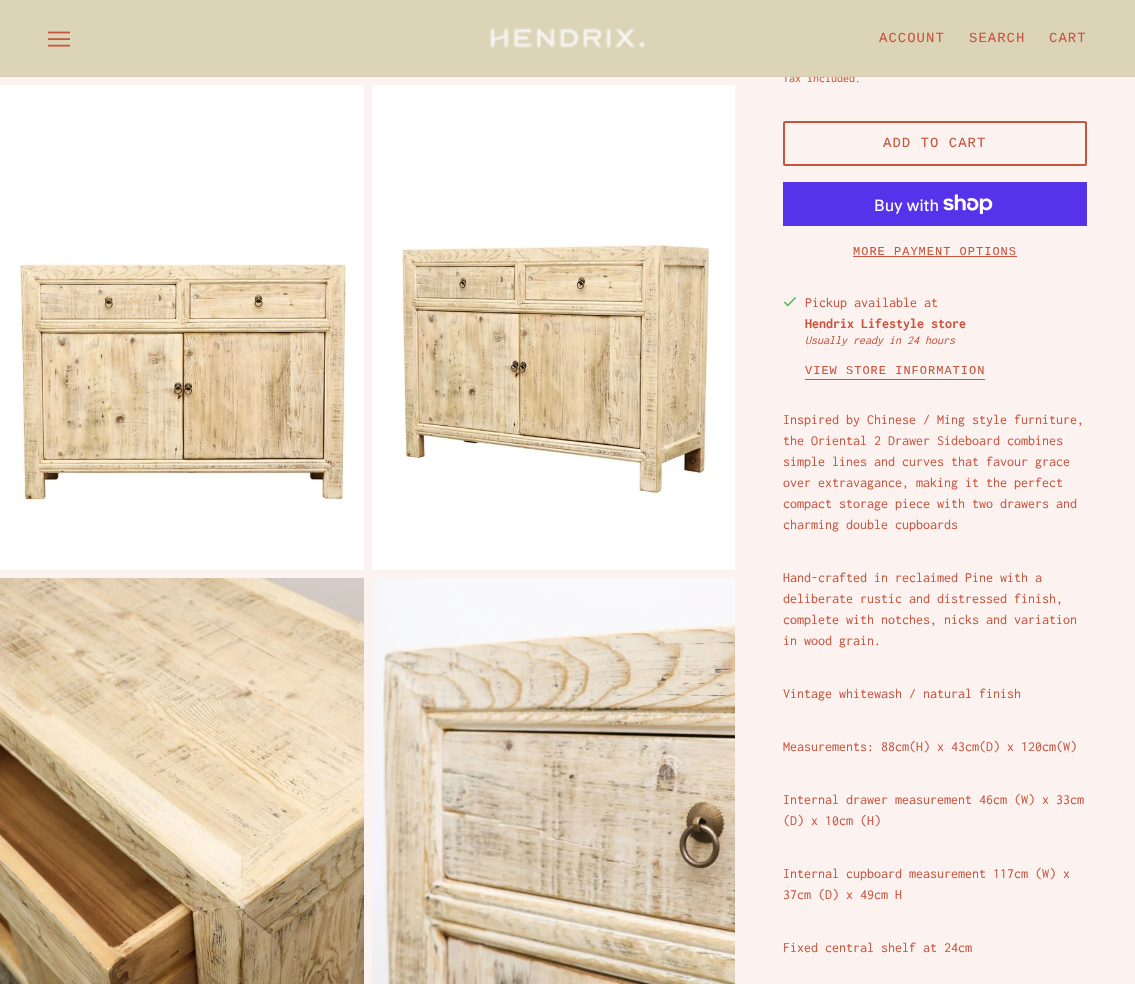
#include "include/core/SkBlurTypes.h"
#include "include/core/SkCanvas.h"
#include "include/core/SkData.h"
#include "include/core/SkFont.h"
#include "include/core/SkFontMgr.h"
#include "include/core/SkImage.h"
#include "include/core/SkMaskFilter.h"
#include "include/core/SkPaint.h"
#include "include/core/SkPathBuilder.h"
#include "include/core/SkTextBlob.h"
#include "include/effects/SkDashPathEffect.h"
#include "include/effects/SkGradientShader.h"
#include "include/utils/SkParsePath.h"

extern sk_sp<SkFontMgr> fontMgr;

static SkFont font(const char* family, int weight, float size, bool italic = false) {
    SkFontStyle style(weight, SkFontStyle::kNormal_Width,
        italic ? SkFontStyle::kItalic_Slant : SkFontStyle::kUpright_Slant);
    SkFont result(fontMgr->matchFamilyStyle(family, style), size);
    result.setSubpixel(true);
    return result;
}

static void drawLabel(SkCanvas* canvas, const char* s, float x, float y, const SkFont& font, SkColor color) {
    SkPaint ink(SkColor4f::FromColor(color));
    ink.setAntiAlias(true);
    canvas->drawString(s, x, y, font, ink);
}

static void drawTracked(SkCanvas* canvas, const char* s, float x, float y, const SkFont& font, const SkPaint& ink, float letter, float word) {
    std::vector<SkGlyphID> glyphs(font.countText(s, strlen(s), SkTextEncoding::kUTF8));
    std::vector<float> xs(glyphs.size());
    font.textToGlyphs(s, strlen(s), SkTextEncoding::kUTF8, glyphs);
    font.getXPos(glyphs, xs, x);
    float extra = 0;
    for (size_t i = 0; i < glyphs.size(); i++) {
        xs[i] += extra;
        extra += letter + word * (glyphs[i] == font.unicharToGlyph(' '));
    }
    canvas->drawTextBlob(SkTextBlob::MakeFromPosHGlyphs(glyphs, xs, y, font), 0, 0, ink);
}

static void fillRect(SkCanvas* canvas, float x, float y, float w, float h, SkColor color) {
    SkPaint ink(SkColor4f::FromColor(color));
    ink.setAntiAlias(true);
    canvas->drawRect(SkRect::MakeXYWH(x, y, w, h), ink);
}

static void drawPhoto(SkCanvas* canvas, const char* path, float x, float y, float w, float h) {
    auto image = SkImages::DeferredFromEncodedData(SkData::MakeFromFileName(path));
    canvas->drawImageRect(image, SkRect::MakeXYWH(x, y, w, h), SkSamplingOptions());
}

void draw(SkCanvas* canvas) {
    SkPaint paint;
    paint.setAntiAlias(true);
    canvas->clear(0xFFFCF3F0);
    SkFont font1 = font("Inconsolata", 400, 12);
    drawLabel(canvas, "Tax included.", 783, 82, font1, 0xFFC95540);
    fillRect(canvas, 0, 0, 1135, 76, 0xFFDBD4B6);
    fillRect(canvas, 0, 76, 1135, 1, 0xFFDACBAE);
    drawPhoto(canvas, "assets/img1.png", 48, 31, 22, 16);
    drawPhoto(canvas, "assets/img2.png", 489, 28, 157, 20);
    SkFont font2 = font("Liberation Mono", 400, 14);
    paint.setColor(0xFFC95540);
    drawTracked(canvas, "ACCOUNT", 879, 42, font2, paint, 1, 0);
    drawTracked(canvas, "SEARCH", 969, 42, font2, paint, 1, 0);
    drawTracked(canvas, "CART", 1049, 42, font2, paint, 1, 0);
    drawPhoto(canvas, "assets/img3.png", 0, 85, 364, 485);
    drawPhoto(canvas, "assets/img4.png", 372, 85, 363, 485);
    drawPhoto(canvas, "assets/img5.png", 0, 578, 364, 406);
    drawPhoto(canvas, "assets/img6.png", 372, 578, 363, 406);
    paint.setStroke(true);
    paint.setStrokeWidth(2);
    canvas->drawRoundRect(SkRect::MakeXYWH(784, 122, 302, 43), 1, 1, paint);
    paint.setStroke(false);
    drawTracked(canvas, "ADD TO CART", 883, 147, font2, paint, 1, 0);
    fillRect(canvas, 783, 182, 304, 44, 0xFF5433EB);
    SkFont font3 = font("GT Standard", 400, 16);
    drawLabel(canvas, "Buy with", 874, 211, font3, 0xFFFFFFFF);
    drawPhoto(canvas, "assets/img7.png", 943, 194, 50, 20);
    SkFont font4 = font("Liberation Mono", 400, 12);
    drawTracked(canvas, "MORE PAYMENT OPTIONS", 853, 255, font4, paint, 1, 0);
    fillRect(canvas, 853, 256, 164, 1, 0xFFC95540);
    drawPhoto(canvas, "assets/img8.png", 783, 297, 13, 10);
    SkFont font5 = font("Inconsolata", 400, 14);
    drawLabel(canvas, "Pickup available at", 805, 307, font5, 0xFFC95540);
    SkFont font6 = font("Inconsolata", 700, 14);
    drawLabel(canvas, "Hendrix Lifestyle store", 805, 328, font6, 0xFFC95540);
    SkFont font7 = font("Inconsolata", 400, 12, true);
    drawLabel(canvas, "Usually ready in 24 hours", 805, 344, font7, 0xFFC95540);
    drawTracked(canvas, "VIEW STORE INFORMATION", 805, 374, font4, paint, 1, 0);
    fillRect(canvas, 805, 379, 180, 1, 0xFFC95540);
    drawLabel(canvas, "Inspired by Chinese / Ming style furniture,", 783, 424, font5, 0xFFC95540);
    drawLabel(canvas, "the Oriental 2 Drawer Sideboard combines", 783, 445, font5, 0xFFC95540);
    drawLabel(canvas, "simple lines and curves that favour grace", 783, 466, font5, 0xFFC95540);
    drawLabel(canvas, "over extravagance, making it the perfect", 783, 487, font5, 0xFFC95540);
    drawLabel(canvas, "compact storage piece with two drawers and", 783, 508, font5, 0xFFC95540);
    drawLabel(canvas, "charming double cupboards", 783, 529, font5, 0xFFC95540);
    drawLabel(canvas, "Hand-crafted in reclaimed Pine with a", 783, 582, font5, 0xFFC95540);
    drawLabel(canvas, "deliberate rustic and distressed finish,", 783, 603, font5, 0xFFC95540);
    drawLabel(canvas, "complete with notches, nicks and variation", 783, 624, font5, 0xFFC95540);
    drawLabel(canvas, "in wood grain.", 783, 645, font5, 0xFFC95540);
    drawLabel(canvas, "Vintage whitewash / natural finish", 783, 698, font5, 0xFFC95540);
    drawLabel(canvas, "Measurements: 88cm(H) x 43cm(D) x 120cm(W)", 783, 751, font5, 0xFFC95540);
    drawLabel(canvas, "Internal drawer measurement 46cm (W) x 33cm", 783, 804, font5, 0xFFC95540);
    drawLabel(canvas, "(D) x 10cm (H)", 783, 825, font5, 0xFFC95540);
    drawLabel(canvas, "Internal cupboard measurement 117cm (W) x", 783, 878, font5, 0xFFC95540);
    drawLabel(canvas, "37cm (D) x 49cm H", 783, 899, font5, 0xFFC95540);
    drawLabel(canvas, "Fixed central shelf at 24cm", 783, 952, font5, 0xFFC95540);
}
